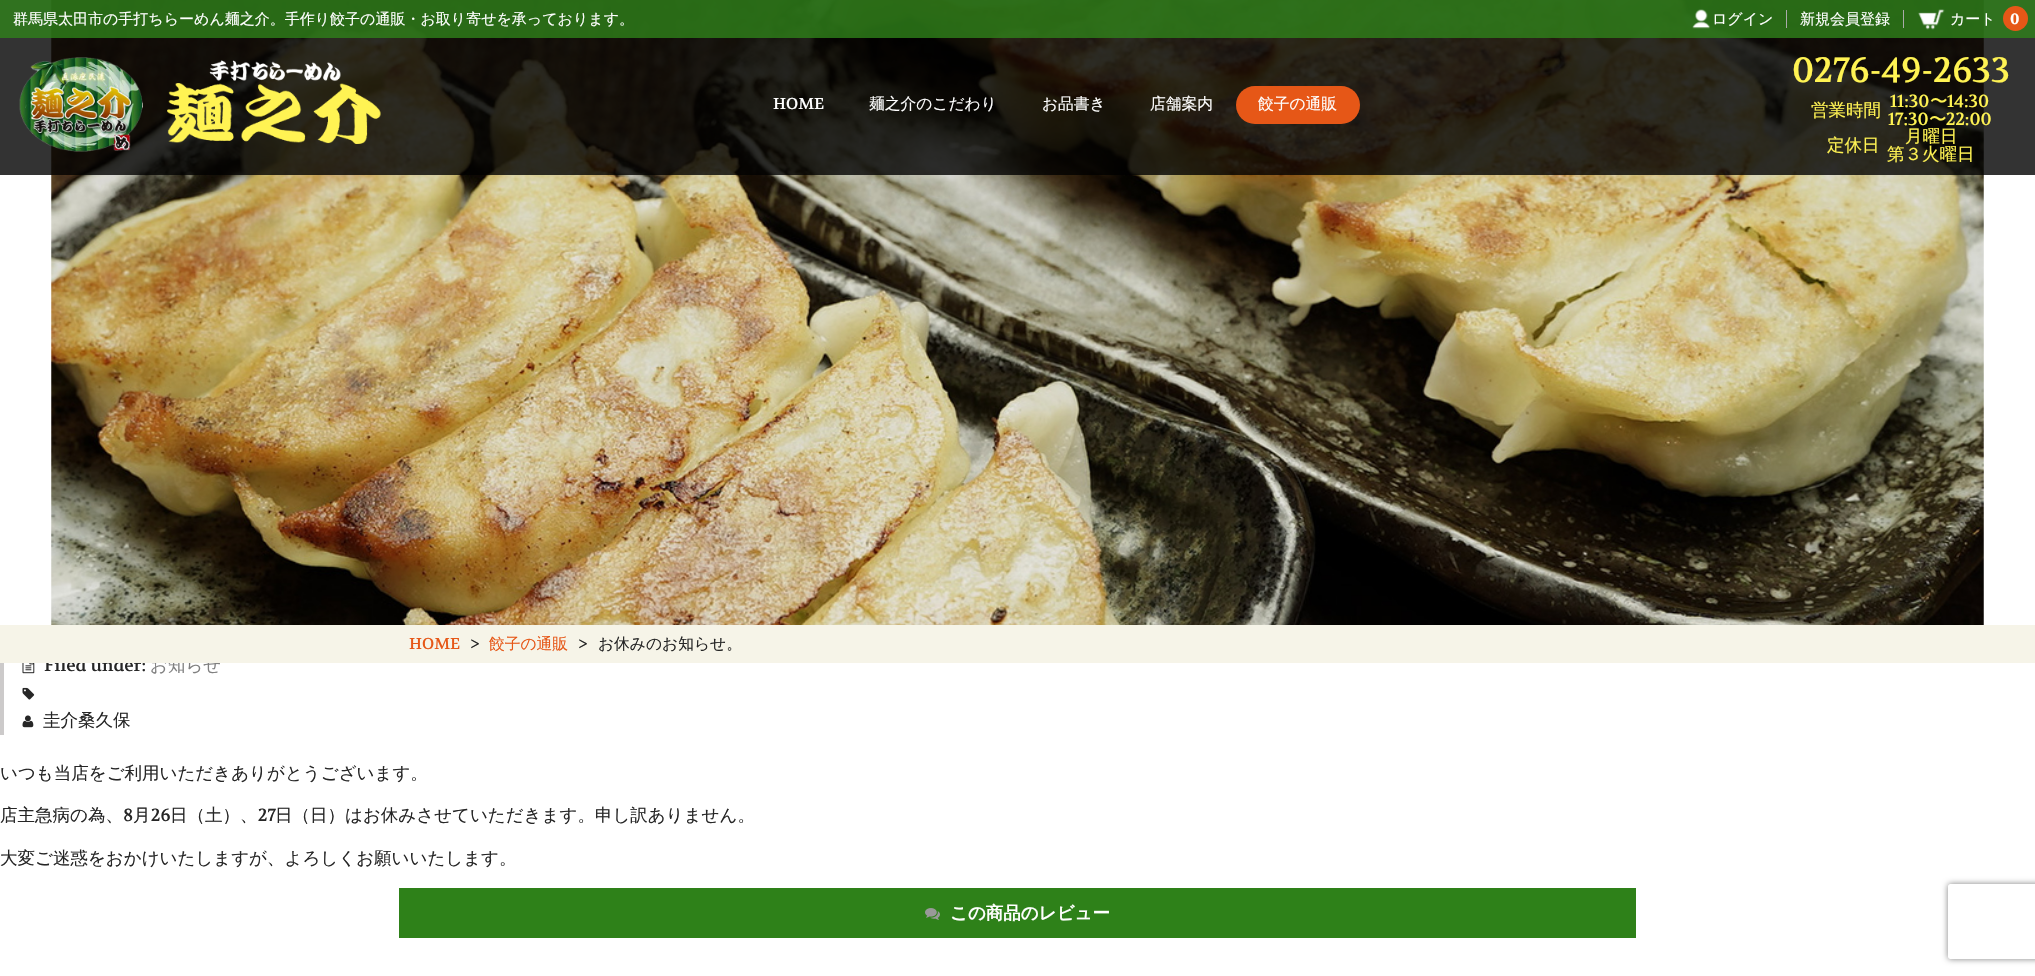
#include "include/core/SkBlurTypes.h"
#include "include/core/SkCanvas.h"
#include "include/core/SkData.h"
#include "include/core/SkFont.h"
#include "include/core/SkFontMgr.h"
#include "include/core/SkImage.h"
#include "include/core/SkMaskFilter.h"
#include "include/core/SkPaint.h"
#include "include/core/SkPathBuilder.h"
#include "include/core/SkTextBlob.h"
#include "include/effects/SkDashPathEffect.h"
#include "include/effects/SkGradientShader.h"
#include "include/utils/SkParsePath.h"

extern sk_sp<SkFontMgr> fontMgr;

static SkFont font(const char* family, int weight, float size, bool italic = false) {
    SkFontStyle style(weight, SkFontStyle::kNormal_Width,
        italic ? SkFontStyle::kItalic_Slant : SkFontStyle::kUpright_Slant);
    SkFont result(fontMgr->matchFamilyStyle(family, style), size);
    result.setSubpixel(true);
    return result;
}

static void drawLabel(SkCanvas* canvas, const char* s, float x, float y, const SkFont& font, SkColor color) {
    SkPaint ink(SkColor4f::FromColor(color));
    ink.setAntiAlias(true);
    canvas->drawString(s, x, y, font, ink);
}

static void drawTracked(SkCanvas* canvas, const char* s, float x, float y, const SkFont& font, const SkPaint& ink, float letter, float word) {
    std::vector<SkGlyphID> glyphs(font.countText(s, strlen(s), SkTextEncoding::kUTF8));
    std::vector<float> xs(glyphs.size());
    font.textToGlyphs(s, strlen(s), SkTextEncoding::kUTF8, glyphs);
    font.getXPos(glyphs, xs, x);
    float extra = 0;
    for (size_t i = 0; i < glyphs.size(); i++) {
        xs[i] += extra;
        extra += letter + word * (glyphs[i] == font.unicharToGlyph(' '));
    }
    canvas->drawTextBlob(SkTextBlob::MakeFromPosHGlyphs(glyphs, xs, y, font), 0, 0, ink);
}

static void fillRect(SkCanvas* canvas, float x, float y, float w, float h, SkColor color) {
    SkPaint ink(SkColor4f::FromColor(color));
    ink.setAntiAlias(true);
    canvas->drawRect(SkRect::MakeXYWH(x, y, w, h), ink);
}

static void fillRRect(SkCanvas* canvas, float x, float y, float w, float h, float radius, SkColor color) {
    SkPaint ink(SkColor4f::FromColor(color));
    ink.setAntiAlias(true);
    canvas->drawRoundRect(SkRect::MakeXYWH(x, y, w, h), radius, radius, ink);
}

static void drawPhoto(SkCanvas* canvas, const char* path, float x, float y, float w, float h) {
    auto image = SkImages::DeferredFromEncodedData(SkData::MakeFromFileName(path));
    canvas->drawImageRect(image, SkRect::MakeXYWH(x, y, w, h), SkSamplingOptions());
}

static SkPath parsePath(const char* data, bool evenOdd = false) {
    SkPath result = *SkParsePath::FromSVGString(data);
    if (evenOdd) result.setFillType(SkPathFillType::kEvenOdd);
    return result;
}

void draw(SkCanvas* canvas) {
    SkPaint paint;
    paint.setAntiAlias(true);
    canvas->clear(0xFFFFFFFF);
    drawPhoto(canvas, "assets/img4.png", 51, 0, 1933, 625);
    fillRect(canvas, 0, 0, 2035, 175, 0xCC000000);
    fillRect(canvas, 0, 0, 2035, 38, 0xCC2E8119);
    SkFont font1 = font("WenQuanYi Zen Hei", 500, 15);
    drawLabel(canvas, "群馬県太田市の手打ちらーめん麺之介。手作り餃子の通販・お取り寄せを承っております。", 13, 24, font1, 0xFFFFFFFF);
    fillRect(canvas, 1786, 10, 1, 18, 0xFFAAAAAA);
    drawPhoto(canvas, "assets/img1.png", 1692, 9, 18, 20);
    drawLabel(canvas, "ログイン", 1712, 24, font1, 0xFFFFFFFF);
    fillRect(canvas, 1903, 10, 1, 18, 0xFFAAAAAA);
    drawLabel(canvas, "新規会員登録", 1800, 24, font1, 0xFFFFFFFF);
    drawPhoto(canvas, "assets/img2.png", 1918, 9, 27, 21);
    drawLabel(canvas, "カート", 1950, 24, font1, 0xFFFFFFFF);
    paint.setColor(0xFFE65717);
    canvas->drawCircle(2015.5f, 18.5f, 12.5f, paint);
    SkFont font2 = font("Volkhov", 700, 15);
    paint.setColor(0xFFFFFFFF);
    drawTracked(canvas, "0", 2010, 24, font2, paint, 1, 0);
    drawPhoto(canvas, "assets/img3.png", 19, 57, 362, 95);
    SkFont font3 = font("Volkhov", 400, 35);
    drawLabel(canvas, "0276-49-2633", 1792, 82, font3, 0xFFFFF353);
    SkFont font4 = font("WenQuanYi Zen Hei", 500, 17.5f);
    drawLabel(canvas, "営業時間", 1811, 116, font4, 0xFFFFF353);
    SkFont font5 = font("Volkhov", 400, 17.5f);
    drawLabel(canvas, "11:30", 1890, 107, font5, 0xFFFFF353);
    drawLabel(canvas, "〜", 1930, 107, font4, 0xFFFFF353);
    drawLabel(canvas, "14:30", 1947, 107, font5, 0xFFFFF353);
    drawLabel(canvas, "17:30", 1888, 125, font5, 0xFFFFF353);
    drawLabel(canvas, "〜", 1929, 125, font4, 0xFFFFF353);
    drawLabel(canvas, "22:00", 1946, 125, font5, 0xFFFFF353);
    drawLabel(canvas, "定休日", 1827, 151, font4, 0xFFFFF353);
    drawLabel(canvas, "月曜日", 1905, 142, font4, 0xFFFFF353);
    drawLabel(canvas, "第３火曜日", 1887, 160, font4, 0xFFFFF353);
    SkFont font6 = font("Volkhov", 400, 15.75f);
    drawLabel(canvas, "HOME", 773, 109, font6, 0xFFFFFFFF);
    SkFont font7 = font("WenQuanYi Zen Hei", 500, 15.75f);
    drawLabel(canvas, "麺之介のこだわり", 869, 109, font7, 0xFFFFFFFF);
    drawLabel(canvas, "お品書き", 1042, 109, font7, 0xFFFFFFFF);
    drawLabel(canvas, "店舗案内", 1150, 109, font7, 0xFFFFFFFF);
    fillRRect(canvas, 1236, 86, 124, 38, 19, 0xFFE65717);
    drawLabel(canvas, "餃子の通販", 1258, 109, font7, 0xFFFFFFFF);
    drawLabel(canvas, "Filed under:", 44, 671, font5, 0xFF262626);
    drawLabel(canvas, "お知らせ", 150, 671, font4, 0xFF808080);
    fillRect(canvas, 0, 625, 2035, 38, 0xFFF6F4E8);
    drawLabel(canvas, "HOME", 409, 649, font6, 0xFFE65717);
    drawLabel(canvas, ">", 470, 650, font5, 0xFF262626);
    drawLabel(canvas, "餃子の通販", 489, 649, font7, 0xFFE65717);
    drawLabel(canvas, ">", 578, 650, font5, 0xFF262626);
    drawLabel(canvas, "お休みのお知らせ。", 598, 649, font7, 0xFF262626);
    fillRect(canvas, 0, 663, 4, 72, 0xFFCCCACA);
    drawPhoto(canvas, "assets/img5.png", 22, 663, 13, 11);
    drawPhoto(canvas, "assets/img6.png", 22, 687, 13, 13);
    drawPhoto(canvas, "assets/img7.png", 22, 715, 12, 13);
    drawLabel(canvas, "圭介桑久保", 43, 726, font4, 0xFF262626);
    drawLabel(canvas, "いつも当店をご利用いただきありがとうございます。", 0, 779, font4, 0xFF262626);
    drawLabel(canvas, "店主急病の為、", 0, 821, font4, 0xFF262626);
    drawLabel(canvas, "8", 123, 821, font5, 0xFF262626);
    drawLabel(canvas, "月", 133, 821, font4, 0xFF262626);
    drawLabel(canvas, "26", 151, 821, font5, 0xFF262626);
    drawLabel(canvas, "日（土）、", 170, 821, font4, 0xFF262626);
    drawLabel(canvas, "27", 258, 821, font5, 0xFF262626);
    drawLabel(canvas, "日（日）はお休みさせていただきます。申し訳ありません。", 275, 821, font4, 0xFF262626);
    drawLabel(canvas, "大変ご迷惑をおかけいたしますが、よろしくお願いいたします。", 0, 864, font4, 0xFF262626);
    fillRect(canvas, 399, 888, 1237, 50, 0xFF2E8119);
    drawPhoto(canvas, "assets/img8.png", 925, 908, 15, 12);
    SkFont font8 = font("WenQuanYi Zen Hei", 700, 17.5f);
    drawLabel(canvas, "この商品のレビュー", 950, 919, font8, 0xFFFFFFFF);
    canvas->save();
    canvas->clipPath(parsePath("M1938 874H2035V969H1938ZM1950.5 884H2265.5C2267 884 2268 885 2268 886.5V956.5C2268 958 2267 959 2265.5 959H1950.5C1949 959 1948 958 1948 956.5V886.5C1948 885 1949 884 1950.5 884Z", true), true);
    paint.setColor(0xFF808080);
    paint.setMaskFilter(SkMaskFilter::MakeBlur(kNormal_SkBlurStyle, 3));
    canvas->drawRoundRect(SkRect::MakeXYWH(1948, 884, 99, 75), 2.5f, 2.5f, paint);
    paint.setMaskFilter(nullptr);
    canvas->restore();
}
